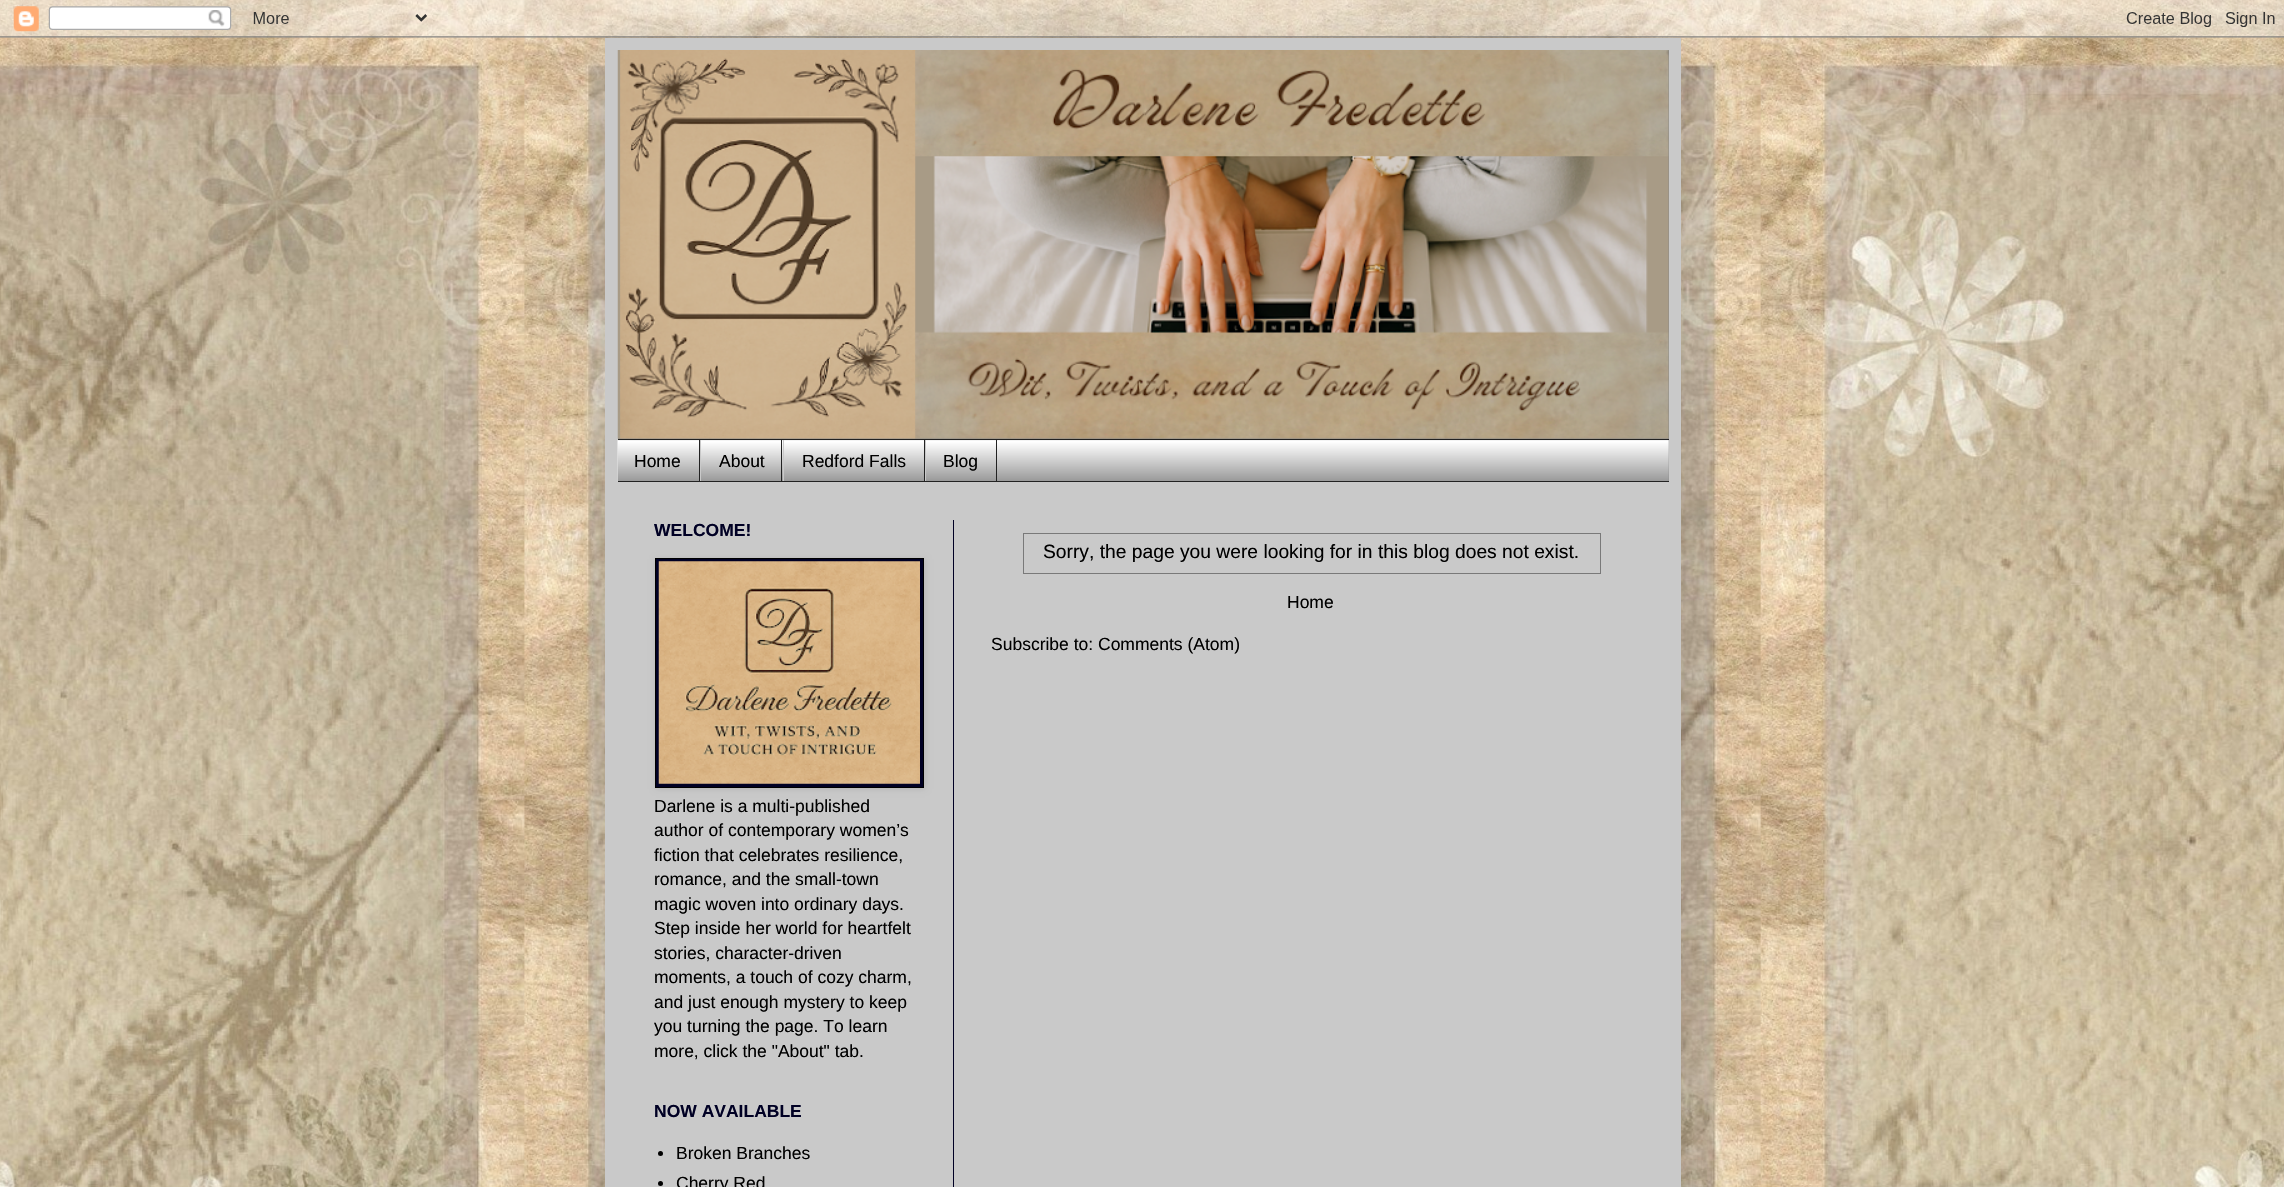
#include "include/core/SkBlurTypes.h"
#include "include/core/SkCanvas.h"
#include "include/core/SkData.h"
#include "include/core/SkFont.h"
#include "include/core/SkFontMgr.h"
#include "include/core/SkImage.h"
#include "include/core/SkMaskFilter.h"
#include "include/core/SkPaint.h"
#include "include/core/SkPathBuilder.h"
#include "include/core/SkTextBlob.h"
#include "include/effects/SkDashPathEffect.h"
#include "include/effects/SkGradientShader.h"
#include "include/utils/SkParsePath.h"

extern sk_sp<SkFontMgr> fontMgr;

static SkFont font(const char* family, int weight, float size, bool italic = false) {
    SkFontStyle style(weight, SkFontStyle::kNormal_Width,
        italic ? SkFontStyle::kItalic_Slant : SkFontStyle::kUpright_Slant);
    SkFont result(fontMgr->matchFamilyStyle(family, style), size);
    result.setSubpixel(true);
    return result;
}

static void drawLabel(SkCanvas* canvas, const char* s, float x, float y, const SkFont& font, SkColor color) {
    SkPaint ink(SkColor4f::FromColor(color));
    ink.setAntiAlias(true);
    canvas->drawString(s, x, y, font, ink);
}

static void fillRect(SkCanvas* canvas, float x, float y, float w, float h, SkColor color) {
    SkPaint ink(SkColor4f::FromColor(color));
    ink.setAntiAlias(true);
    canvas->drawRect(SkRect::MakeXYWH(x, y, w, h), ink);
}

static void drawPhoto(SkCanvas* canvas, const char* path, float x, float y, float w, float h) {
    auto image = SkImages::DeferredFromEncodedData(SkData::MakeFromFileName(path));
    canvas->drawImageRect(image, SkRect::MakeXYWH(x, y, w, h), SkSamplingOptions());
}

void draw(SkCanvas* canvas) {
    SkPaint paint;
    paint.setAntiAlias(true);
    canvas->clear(0xFFFFFFFF);
    drawPhoto(canvas, "assets/img1.png", 0, 0, 2284, 1187);
    paint.setColor(0x26000000);
    paint.setMaskFilter(SkMaskFilter::MakeBlur(kNormal_SkBlurStyle, 25));
    canvas->drawRect(SkRect::MakeXYWH(605, 38, 1076, 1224), paint);
    paint.setMaskFilter(nullptr);
    drawPhoto(canvas, "assets/img2.png", 0, 0, 2284, 38);
    fillRect(canvas, 605, 38, 1076, 1149, 0xFFC9C9C9);
    fillRect(canvas, 618, 50, 1051, 389, 0xFF868686);
    drawPhoto(canvas, "assets/img3.png", 617, 50, 1052, 389);
    fillRect(canvas, 618, 440, 1051, 41, 0xFF868686);
    drawPhoto(canvas, "assets/img4.png", 617, 439, 1052, 43);
    fillRect(canvas, 618, 439, 1051, 1, 0xFF222222);
    fillRect(canvas, 618, 481, 1051, 1, 0xFF222222);
    fillRect(canvas, 699, 440, 1, 41, 0xFF222222);
    SkFont font1 = font("Liberation Sans", 400, 17.5f);
    drawLabel(canvas, "Home", 634, 467, font1, 0xFF000000);
    fillRect(canvas, 781, 440, 1, 41, 0xFF222222);
    fillRect(canvas, 700, 440, 1, 41, 0xFFC9C9C9);
    drawLabel(canvas, "About", 719, 467, font1, 0xFF000000);
    fillRect(canvas, 924, 440, 1, 41, 0xFF222222);
    fillRect(canvas, 783, 440, 1, 41, 0xFFC9C9C9);
    drawLabel(canvas, "Redford Falls", 802, 467, font1, 0xFF000000);
    fillRect(canvas, 996, 440, 1, 41, 0xFF222222);
    fillRect(canvas, 925, 440, 1, 41, 0xFFC9C9C9);
    drawLabel(canvas, "Blog", 943, 467, font1, 0xFF000000);
    fillRect(canvas, 953, 520, 1, 667, 0xFF000024);
    SkFont font2 = font("Liberation Sans", 700, 17.5f);
    drawLabel(canvas, "WELCOME!", 654, 536, font2, 0xFF000024);
    paint.setColor(0x1A000000);
    paint.setMaskFilter(SkMaskFilter::MakeBlur(kNormal_SkBlurStyle, 3));
    canvas->drawRect(SkRect::MakeXYWH(656, 559, 269, 230), paint);
    paint.setMaskFilter(nullptr);
    paint.setColor(0xFF000024);
    canvas->drawRect(SkRect::MakeXYWH(655.5f, 558.5f, 268, 229), paint);
    paint.setStroke(true);
    paint.setStrokeWidth(1);
    paint.setColor(0xFF000000);
    canvas->drawRect(SkRect::MakeXYWH(655.5f, 558.5f, 268, 229), paint);
    drawPhoto(canvas, "assets/img5.png", 658, 561, 262, 223);
    drawLabel(canvas, "Darlene is a multi-published", 654, 812, font1, 0xFF000000);
    drawLabel(canvas, "author of contemporary women’s", 654, 836, font1, 0xFF000000);
    drawLabel(canvas, "fiction that celebrates resilience,", 654, 861, font1, 0xFF000000);
    drawLabel(canvas, "romance, and the small-town", 654, 885, font1, 0xFF000000);
    drawLabel(canvas, "magic woven into ordinary days.", 654, 910, font1, 0xFF000000);
    drawLabel(canvas, "Step inside her world for heartfelt", 654, 934, font1, 0xFF000000);
    drawLabel(canvas, "stories, character-driven", 654, 959, font1, 0xFF000000);
    drawLabel(canvas, "moments, a touch of cozy charm,", 654, 983, font1, 0xFF000000);
    drawLabel(canvas, "and just enough mystery to keep", 654, 1008, font1, 0xFF000000);
    drawLabel(canvas, "you turning the page. To learn", 654, 1032, font1, 0xFF000000);
    drawLabel(canvas, "more, click the \"About\" tab.", 654, 1057, font1, 0xFF000000);
    drawLabel(canvas, "NOW AVAILABLE", 654, 1117, font2, 0xFF000024);
    paint.setStroke(false);
    canvas->drawCircle(660.5f, 1153.5f, 2.5f, paint);
    drawLabel(canvas, "Broken Branches", 676, 1159, font1, 0xFF000000);
    canvas->drawCircle(660.5f, 1183.5f, 2.5f, paint);
    drawLabel(canvas, "Cherry Red", 676, 1189, font1, 0xFF000000);
    paint.setStroke(true);
    paint.setColor(0xFF797979);
    canvas->drawRect(SkRect::MakeXYWH(1023.5f, 533.5f, 577, 40), paint);
    SkFont font3 = font("Liberation Sans", 400, 19.25f);
    drawLabel(canvas, "Sorry, the page you were looking for in this blog does not exist.", 1043, 558, font3, 0xFF000000);
    drawLabel(canvas, "Home", 1287, 608, font1, 0xFF000000);
    drawLabel(canvas, "Subscribe to: Comments (Atom)", 991, 650, font1, 0xFF000000);
}
